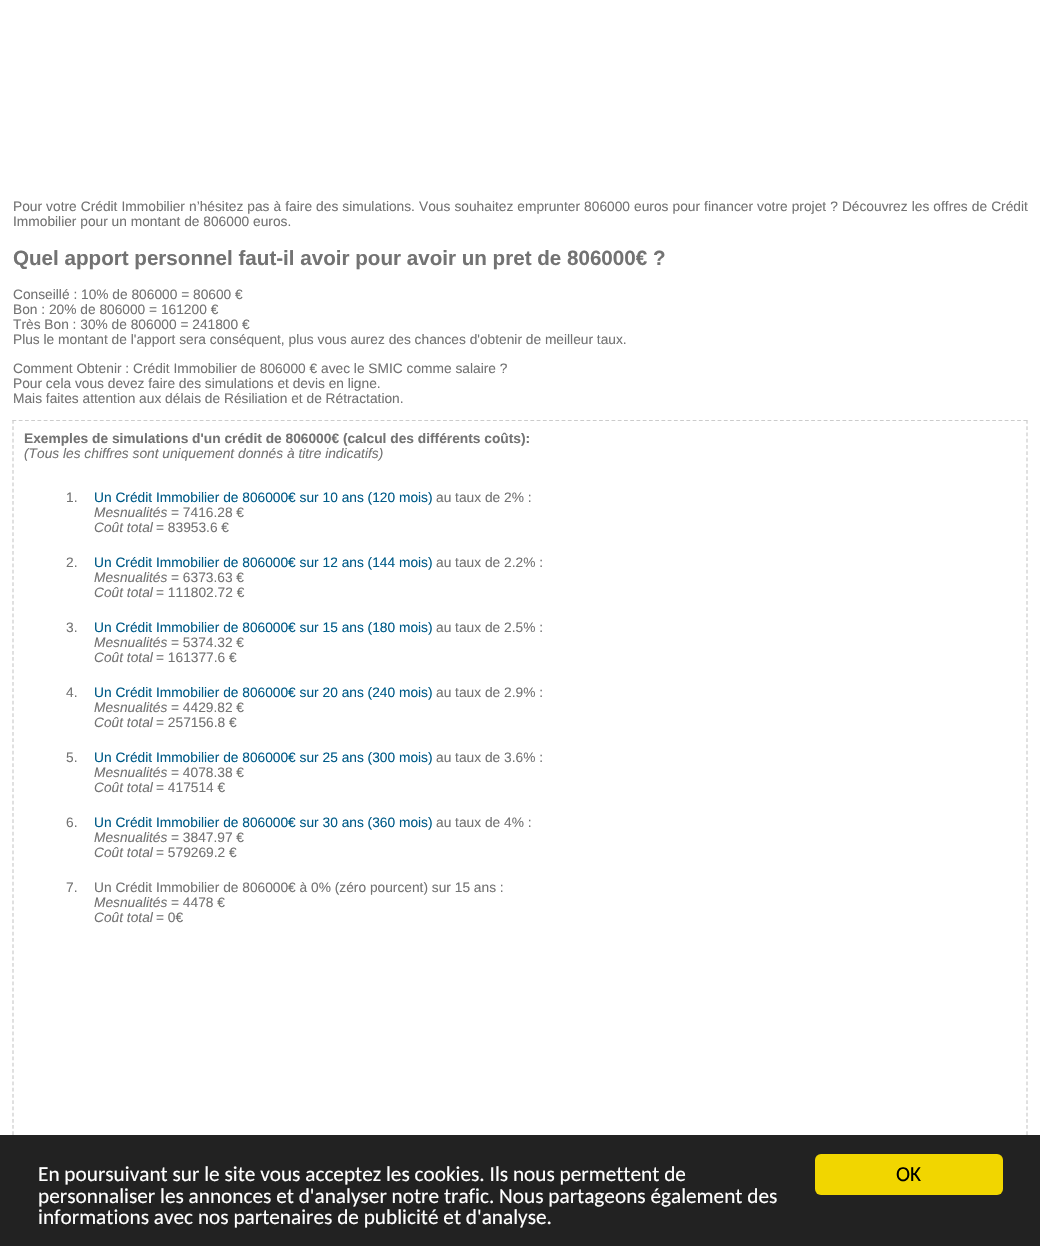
#include "include/core/SkBlurTypes.h"
#include "include/core/SkCanvas.h"
#include "include/core/SkData.h"
#include "include/core/SkFont.h"
#include "include/core/SkFontMgr.h"
#include "include/core/SkImage.h"
#include "include/core/SkMaskFilter.h"
#include "include/core/SkPaint.h"
#include "include/core/SkPathBuilder.h"
#include "include/core/SkTextBlob.h"
#include "include/effects/SkDashPathEffect.h"
#include "include/effects/SkGradientShader.h"
#include "include/utils/SkParsePath.h"

extern sk_sp<SkFontMgr> fontMgr;

static SkFont font(const char* family, int weight, float size, bool italic = false) {
    SkFontStyle style(weight, SkFontStyle::kNormal_Width,
        italic ? SkFontStyle::kItalic_Slant : SkFontStyle::kUpright_Slant);
    SkFont result(fontMgr->matchFamilyStyle(family, style), size);
    result.setSubpixel(true);
    return result;
}

static void drawLabel(SkCanvas* canvas, const char* s, float x, float y, const SkFont& font, SkColor color) {
    SkPaint ink(SkColor4f::FromColor(color));
    ink.setAntiAlias(true);
    canvas->drawString(s, x, y, font, ink);
}

static void drawTracked(SkCanvas* canvas, const char* s, float x, float y, const SkFont& font, const SkPaint& ink, float letter, float word) {
    std::vector<SkGlyphID> glyphs(font.countText(s, strlen(s), SkTextEncoding::kUTF8));
    std::vector<float> xs(glyphs.size());
    font.textToGlyphs(s, strlen(s), SkTextEncoding::kUTF8, glyphs);
    font.getXPos(glyphs, xs, x);
    float extra = 0;
    for (size_t i = 0; i < glyphs.size(); i++) {
        xs[i] += extra;
        extra += letter + word * (glyphs[i] == font.unicharToGlyph(' '));
    }
    canvas->drawTextBlob(SkTextBlob::MakeFromPosHGlyphs(glyphs, xs, y, font), 0, 0, ink);
}

static void fillRect(SkCanvas* canvas, float x, float y, float w, float h, SkColor color) {
    SkPaint ink(SkColor4f::FromColor(color));
    ink.setAntiAlias(true);
    canvas->drawRect(SkRect::MakeXYWH(x, y, w, h), ink);
}

static void fillRRect(SkCanvas* canvas, float x, float y, float w, float h, float radius, SkColor color) {
    SkPaint ink(SkColor4f::FromColor(color));
    ink.setAntiAlias(true);
    canvas->drawRoundRect(SkRect::MakeXYWH(x, y, w, h), radius, radius, ink);
}

static SkPath parsePath(const char* data, bool evenOdd = false) {
    SkPath result = *SkParsePath::FromSVGString(data);
    if (evenOdd) result.setFillType(SkPathFillType::kEvenOdd);
    return result;
}

void draw(SkCanvas* canvas) {
    SkPaint paint;
    paint.setAntiAlias(true);
    canvas->clear(0xFFFFFFFF);
    SkFont font1 = font("Liberation Sans", 400, 13.75f);
    paint.setColor(0xFF737373);
    drawTracked(canvas, "Pour votre Crédit Immobilier n’hésitez pas à faire des simulations. Vous souhaitez emprunter 806000 euros pour financer votre projet ? Découvrez les offres de Crédit", 13, 211, font1, paint, 0, 0.25f);
    drawLabel(canvas, "Immobilier pour un montant de 806000 euros.", 13, 226, font1, 0xFF737373);
    SkFont font2 = font("Liberation Sans", 700, 20.6f);
    drawLabel(canvas, "Quel apport personnel faut-il avoir pour avoir un pret de 806000€ ?", 13, 265, font2, 0xFF737373);
    drawLabel(canvas, "Conseillé : 10% de 806000 = 80600 €", 13, 299, font1, 0xFF737373);
    drawLabel(canvas, "Bon : 20% de 806000 = 161200 €", 13, 314, font1, 0xFF737373);
    drawLabel(canvas, "Très Bon : 30% de 806000 = 241800 €", 13, 329, font1, 0xFF737373);
    drawLabel(canvas, "Plus le montant de l'apport sera conséquent, plus vous aurez des chances d'obtenir de meilleur taux.", 13, 344, font1, 0xFF737373);
    drawLabel(canvas, "Comment Obtenir : Crédit Immobilier de 806000 € avec le SMIC comme salaire ?", 13, 373, font1, 0xFF737373);
    drawLabel(canvas, "Pour cela vous devez faire des simulations et devis en ligne.", 13, 388, font1, 0xFF737373);
    drawLabel(canvas, "Mais faites attention aux délais de Résiliation et de Rétractation.", 13, 403, font1, 0xFF737373);
    paint.setStroke(true);
    paint.setStrokeWidth(1.2f);
    paint.setColor(0xFFCCCCCC);
    paint.setPathEffect(SkDashPathEffect::Make({{3.75f, 2.49f}}, 0));
    canvas->drawPath(parsePath("M12.5 420.5H1027.5"), paint);
    paint.setPathEffect(nullptr);
    paint.setPathEffect(SkDashPathEffect::Make({{3.75f, 2.49f}}, 0));
    canvas->drawPath(parsePath("M1027 420V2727.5"), paint);
    paint.setPathEffect(nullptr);
    paint.setPathEffect(SkDashPathEffect::Make({{3.75f, 2.49f}}, 0));
    canvas->drawPath(parsePath("M13 420V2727.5"), paint);
    paint.setPathEffect(nullptr);
    SkFont font3 = font("Liberation Sans", 700, 13.75f);
    drawLabel(canvas, "Exemples de simulations d'un crédit de 806000€ (calcul des différents coûts):", 24, 443, font3, 0xFF737373);
    SkFont font4 = font("Liberation Sans", 400, 13.75f, true);
    drawLabel(canvas, "(Tous les chiffres sont uniquement donnés à titre indicatifs)", 24, 458, font4, 0xFF737373);
    drawLabel(canvas, "1.", 66, 502, font1, 0xFF737373);
    drawLabel(canvas, "Un Crédit Immobilier de 806000€ sur 10 ans (120 mois)", 94, 502, font1, 0xFF005B88);
    drawLabel(canvas, "au taux de 2% :", 436, 502, font1, 0xFF737373);
    drawLabel(canvas, "Mesnualités", 94, 517, font4, 0xFF737373);
    drawLabel(canvas, "= 7416.28 €", 171, 517, font1, 0xFF737373);
    drawLabel(canvas, "Coût total", 94, 532, font4, 0xFF737373);
    drawLabel(canvas, "= 83953.6 €", 156, 532, font1, 0xFF737373);
    drawLabel(canvas, "2.", 66, 567, font1, 0xFF737373);
    drawLabel(canvas, "Un Crédit Immobilier de 806000€ sur 12 ans (144 mois)", 94, 567, font1, 0xFF005B88);
    drawLabel(canvas, "au taux de 2.2% :", 436, 567, font1, 0xFF737373);
    drawLabel(canvas, "Mesnualités", 94, 582, font4, 0xFF737373);
    drawLabel(canvas, "= 6373.63 €", 171, 582, font1, 0xFF737373);
    drawLabel(canvas, "Coût total", 94, 597, font4, 0xFF737373);
    drawLabel(canvas, "= 111802.72 €", 156, 597, font1, 0xFF737373);
    drawLabel(canvas, "3.", 66, 632, font1, 0xFF737373);
    drawLabel(canvas, "Un Crédit Immobilier de 806000€ sur 15 ans (180 mois)", 94, 632, font1, 0xFF005B88);
    drawLabel(canvas, "au taux de 2.5% :", 436, 632, font1, 0xFF737373);
    drawLabel(canvas, "Mesnualités", 94, 647, font4, 0xFF737373);
    drawLabel(canvas, "= 5374.32 €", 171, 647, font1, 0xFF737373);
    drawLabel(canvas, "Coût total", 94, 662, font4, 0xFF737373);
    drawLabel(canvas, "= 161377.6 €", 156, 662, font1, 0xFF737373);
    drawLabel(canvas, "4.", 66, 697, font1, 0xFF737373);
    drawLabel(canvas, "Un Crédit Immobilier de 806000€ sur 20 ans (240 mois)", 94, 697, font1, 0xFF005B88);
    drawLabel(canvas, "au taux de 2.9% :", 436, 697, font1, 0xFF737373);
    drawLabel(canvas, "Mesnualités", 94, 712, font4, 0xFF737373);
    drawLabel(canvas, "= 4429.82 €", 171, 712, font1, 0xFF737373);
    drawLabel(canvas, "Coût total", 94, 727, font4, 0xFF737373);
    drawLabel(canvas, "= 257156.8 €", 156, 727, font1, 0xFF737373);
    drawLabel(canvas, "5.", 66, 762, font1, 0xFF737373);
    drawLabel(canvas, "Un Crédit Immobilier de 806000€ sur 25 ans (300 mois)", 94, 762, font1, 0xFF005B88);
    drawLabel(canvas, "au taux de 3.6% :", 436, 762, font1, 0xFF737373);
    drawLabel(canvas, "Mesnualités", 94, 777, font4, 0xFF737373);
    drawLabel(canvas, "= 4078.38 €", 171, 777, font1, 0xFF737373);
    drawLabel(canvas, "Coût total", 94, 792, font4, 0xFF737373);
    drawLabel(canvas, "= 417514 €", 156, 792, font1, 0xFF737373);
    drawLabel(canvas, "6.", 66, 827, font1, 0xFF737373);
    drawLabel(canvas, "Un Crédit Immobilier de 806000€ sur 30 ans (360 mois)", 94, 827, font1, 0xFF005B88);
    drawLabel(canvas, "au taux de 4% :", 436, 827, font1, 0xFF737373);
    drawLabel(canvas, "Mesnualités", 94, 842, font4, 0xFF737373);
    drawLabel(canvas, "= 3847.97 €", 171, 842, font1, 0xFF737373);
    drawLabel(canvas, "Coût total", 94, 857, font4, 0xFF737373);
    drawLabel(canvas, "= 579269.2 €", 156, 857, font1, 0xFF737373);
    drawLabel(canvas, "7.", 66, 892, font1, 0xFF737373);
    drawLabel(canvas, "Un Crédit Immobilier de 806000€ à 0% (zéro pourcent) sur 15 ans :", 94, 892, font1, 0xFF737373);
    drawLabel(canvas, "Mesnualités", 94, 907, font4, 0xFF737373);
    drawLabel(canvas, "= 4478 €", 171, 907, font1, 0xFF737373);
    drawLabel(canvas, "Coût total", 94, 922, font4, 0xFF737373);
    drawLabel(canvas, "= 0€", 156, 922, font1, 0xFF737373);
    fillRect(canvas, 0, 1135, 1040, 111, 0xFF222222);
    SkFont font5 = font("Carlito", 400, 21.25f);
    drawLabel(canvas, "En poursuivant sur le site vous acceptez les cookies. Ils nous permettent de", 38, 1181, font5, 0xFFFFFFFF);
    drawLabel(canvas, "personnaliser les annonces et d'analyser notre trafic. Nous partageons également des", 38, 1203, font5, 0xFFFFFFFF);
    drawLabel(canvas, "informations avec nos partenaires de publicité et d'analyse.", 38, 1224, font5, 0xFFFFFFFF);
    fillRRect(canvas, 815, 1154, 188, 41, 6, 0xFFF1D600);
    drawLabel(canvas, "OK", 896, 1181, font5, 0xFF000000);
}
